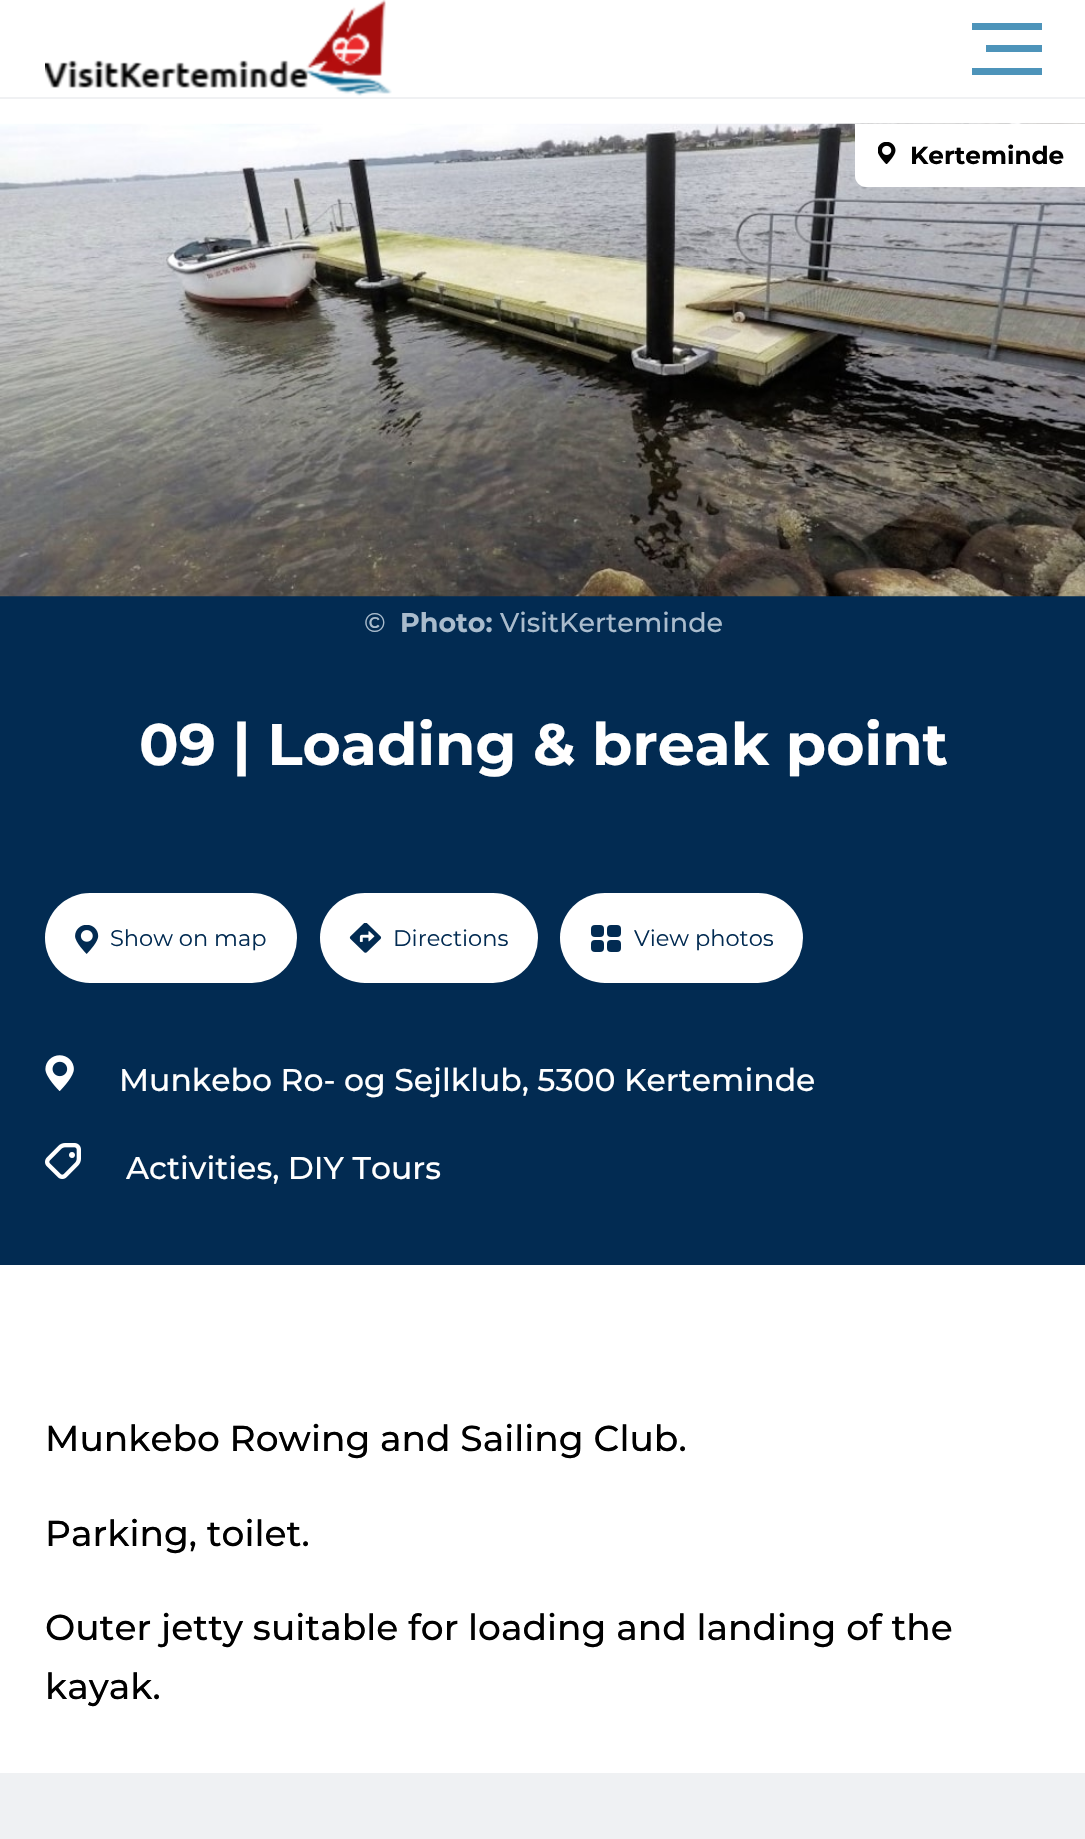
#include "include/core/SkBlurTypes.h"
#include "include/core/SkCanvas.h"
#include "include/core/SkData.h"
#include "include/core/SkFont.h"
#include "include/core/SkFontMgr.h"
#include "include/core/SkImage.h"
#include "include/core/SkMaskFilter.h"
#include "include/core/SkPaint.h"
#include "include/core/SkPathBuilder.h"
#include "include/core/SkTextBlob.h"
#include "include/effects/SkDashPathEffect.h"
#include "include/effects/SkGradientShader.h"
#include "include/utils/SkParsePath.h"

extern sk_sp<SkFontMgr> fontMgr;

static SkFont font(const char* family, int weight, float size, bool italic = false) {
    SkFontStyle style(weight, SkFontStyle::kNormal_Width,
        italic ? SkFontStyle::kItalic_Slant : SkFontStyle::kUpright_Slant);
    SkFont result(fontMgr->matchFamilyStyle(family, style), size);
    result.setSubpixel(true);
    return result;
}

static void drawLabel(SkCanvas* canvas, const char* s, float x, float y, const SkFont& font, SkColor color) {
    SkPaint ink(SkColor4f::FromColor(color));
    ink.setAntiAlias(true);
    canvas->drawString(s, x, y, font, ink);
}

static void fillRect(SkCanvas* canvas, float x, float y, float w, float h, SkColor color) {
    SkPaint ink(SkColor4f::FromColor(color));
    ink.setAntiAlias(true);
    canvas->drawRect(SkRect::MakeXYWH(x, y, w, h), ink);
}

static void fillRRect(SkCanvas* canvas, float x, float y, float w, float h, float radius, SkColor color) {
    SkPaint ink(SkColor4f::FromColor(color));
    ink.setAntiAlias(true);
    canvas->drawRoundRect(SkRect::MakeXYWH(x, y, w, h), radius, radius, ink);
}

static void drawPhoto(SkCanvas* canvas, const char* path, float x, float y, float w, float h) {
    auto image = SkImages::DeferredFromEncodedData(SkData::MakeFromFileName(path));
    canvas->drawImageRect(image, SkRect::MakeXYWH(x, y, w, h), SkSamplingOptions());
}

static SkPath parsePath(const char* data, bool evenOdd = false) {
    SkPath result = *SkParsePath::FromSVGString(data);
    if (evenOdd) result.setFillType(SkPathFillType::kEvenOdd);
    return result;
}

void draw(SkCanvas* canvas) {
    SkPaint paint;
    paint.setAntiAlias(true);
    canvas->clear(0xFFFFFFFF);
    fillRect(canvas, 0, 97, 1085, 2, 0xFFF0F1F3);
    drawPhoto(canvas, "assets/img1.png", 45, 0, 347, 96);
    fillRect(canvas, 972, 23, 70, 7, 0xFF4D94BA);
    fillRect(canvas, 986, 45, 56, 7, 0xFF4D94BA);
    fillRect(canvas, 972, 68, 70, 7, 0xFF4D94BA);
    fillRect(canvas, 0, 596, 1085, 669, 0xFF022B52);
    drawPhoto(canvas, "assets/img2.png", 0, 123, 1085, 474);
    paint.setColor(0xFFFFFFFF);
    canvas->drawPath(parsePath("M855 124H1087V187H866C860 187 855 182 855 176Z"), paint);
    drawPhoto(canvas, "assets/img3.png", 878, 142, 18, 22);
    SkFont font1 = font("Montserrat", 700, 24.75f);
    drawLabel(canvas, "Kerteminde", 910, 164, font1, 0xFF000000);
    SkFont font2 = font("Montserrat", 500, 27);
    drawLabel(canvas, "©", 364, 632, font2, 0xFFAABCCD);
    SkFont font3 = font("Montserrat", 700, 27);
    drawLabel(canvas, "Photo:", 400, 632, font3, 0xFFAABCCD);
    drawLabel(canvas, "VisitKerteminde", 500, 632, font2, 0xFFAABCCD);
    SkFont font4 = font("Montserrat", 700, 58.5f);
    drawLabel(canvas, "09 | Loading & break point", 139, 765, font4, 0xFFFFFFFF);
    fillRRect(canvas, 45, 893, 252, 90, 45, 0xFFFFFFFF);
    drawPhoto(canvas, "assets/img4.png", 75, 925, 24, 29);
    SkFont font5 = font("Montserrat", 400, 22.5f);
    drawLabel(canvas, "Show on map", 110, 946, font5, 0xFF022B52);
    fillRRect(canvas, 320, 893, 218, 90, 45, 0xFFFFFFFF);
    drawPhoto(canvas, "assets/img5.png", 349, 923, 33, 30);
    drawLabel(canvas, "Directions", 393, 946, font5, 0xFF022B52);
    fillRRect(canvas, 560, 893, 243, 90, 45, 0xFFFFFFFF);
    fillRRect(canvas, 607, 925, 14, 12, 4, 0xFF022B52);
    fillRRect(canvas, 607, 940, 14, 12, 4, 0xFF022B52);
    fillRRect(canvas, 591, 925, 13, 12, 4, 0xFF022B52);
    fillRRect(canvas, 591, 940, 13, 12, 4, 0xFF022B52);
    drawLabel(canvas, "View photos", 634, 946, font5, 0xFF022B52);
    drawPhoto(canvas, "assets/img6.png", 45, 1055, 29, 36);
    SkFont font6 = font("Montserrat", 500, 31.5f);
    drawLabel(canvas, "Munkebo Ro- og Sejlklub, 5300 Kerteminde", 119, 1091, font6, 0xFFFFFFFF);
    drawPhoto(canvas, "assets/img7.png", 45, 1143, 36, 36);
    drawLabel(canvas, "Activities, DIY Tours", 126, 1179, font6, 0xFFFFFFFF);
    SkFont font7 = font("Montserrat", 500, 36);
    drawLabel(canvas, "Munkebo Rowing and Sailing Club.", 45, 1451, font7, 0xFF000000);
    drawLabel(canvas, "Parking, toilet.", 45, 1546, font7, 0xFF000000);
    drawLabel(canvas, "Outer jetty suitable for loading and landing of the", 45, 1640, font7, 0xFF000000);
    drawLabel(canvas, "kayak.", 45, 1699, font7, 0xFF000000);
    fillRect(canvas, 0, 1773, 1085, 66, 0xFFEFF1F3);
}
